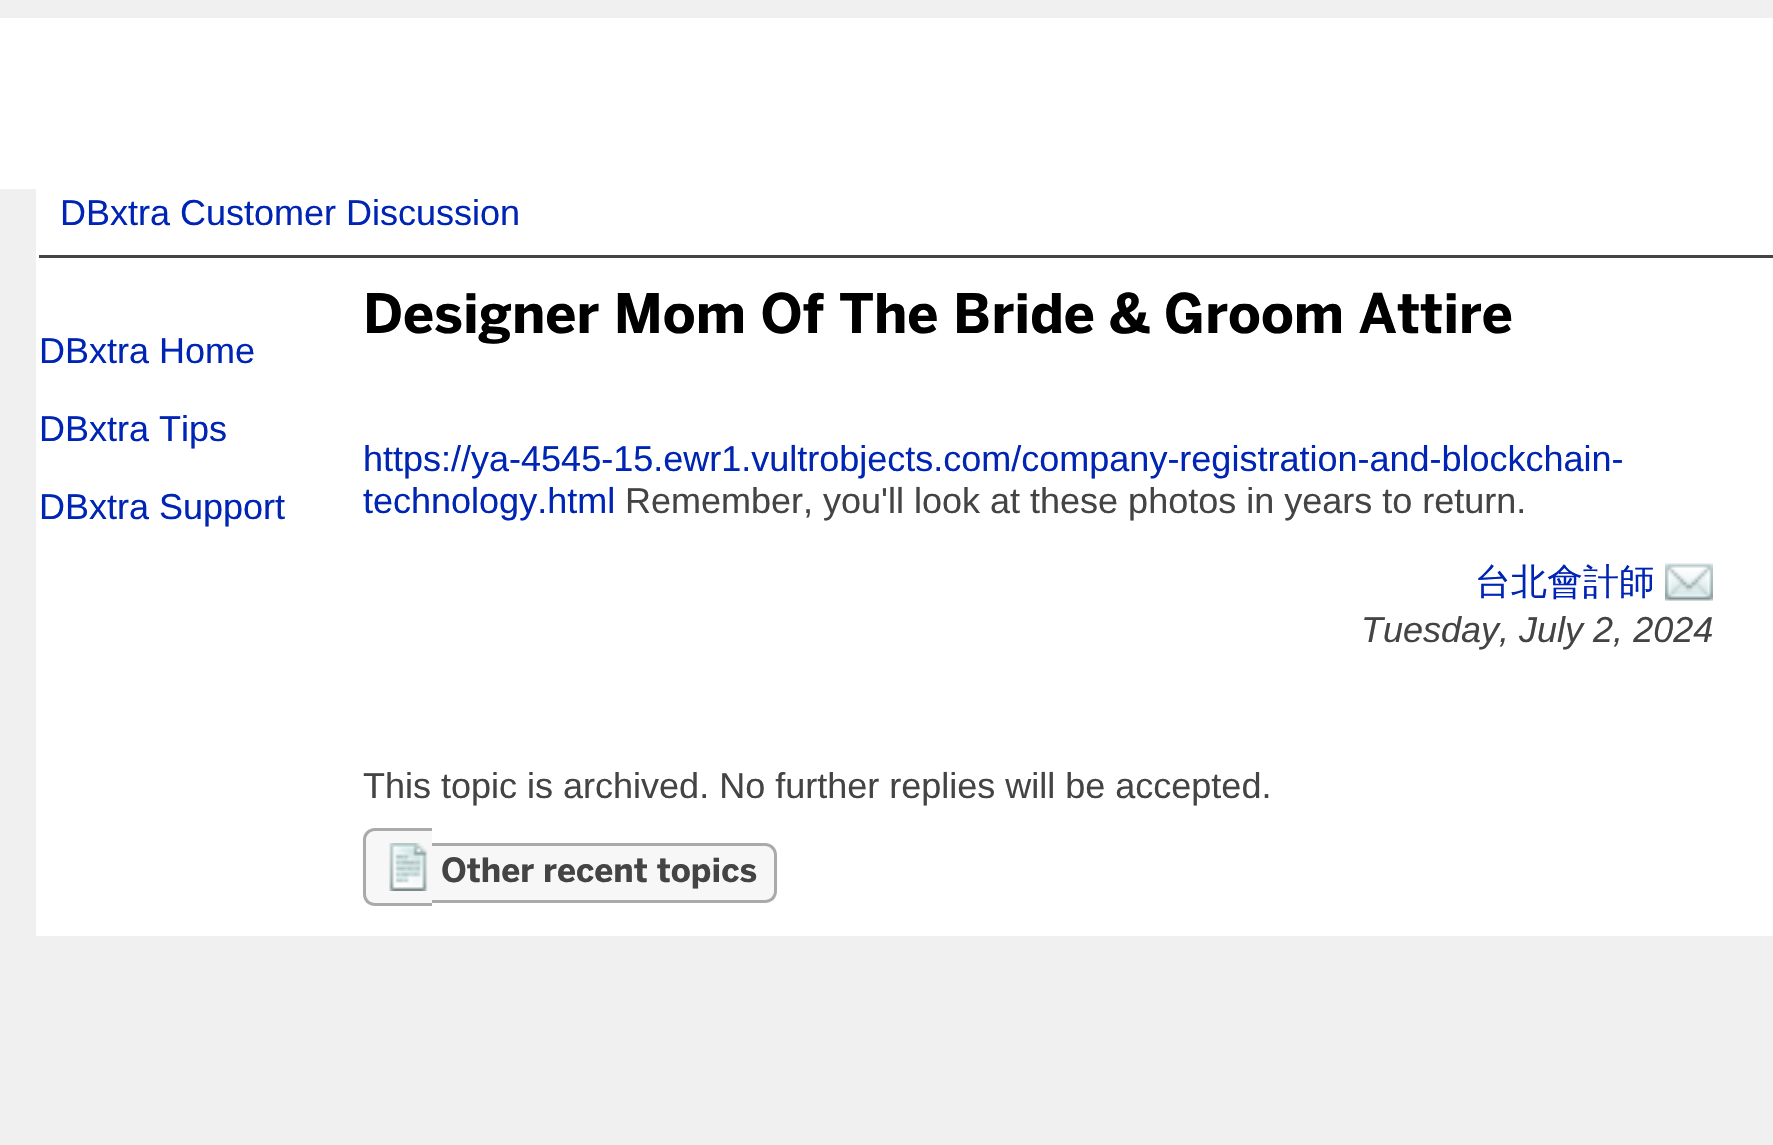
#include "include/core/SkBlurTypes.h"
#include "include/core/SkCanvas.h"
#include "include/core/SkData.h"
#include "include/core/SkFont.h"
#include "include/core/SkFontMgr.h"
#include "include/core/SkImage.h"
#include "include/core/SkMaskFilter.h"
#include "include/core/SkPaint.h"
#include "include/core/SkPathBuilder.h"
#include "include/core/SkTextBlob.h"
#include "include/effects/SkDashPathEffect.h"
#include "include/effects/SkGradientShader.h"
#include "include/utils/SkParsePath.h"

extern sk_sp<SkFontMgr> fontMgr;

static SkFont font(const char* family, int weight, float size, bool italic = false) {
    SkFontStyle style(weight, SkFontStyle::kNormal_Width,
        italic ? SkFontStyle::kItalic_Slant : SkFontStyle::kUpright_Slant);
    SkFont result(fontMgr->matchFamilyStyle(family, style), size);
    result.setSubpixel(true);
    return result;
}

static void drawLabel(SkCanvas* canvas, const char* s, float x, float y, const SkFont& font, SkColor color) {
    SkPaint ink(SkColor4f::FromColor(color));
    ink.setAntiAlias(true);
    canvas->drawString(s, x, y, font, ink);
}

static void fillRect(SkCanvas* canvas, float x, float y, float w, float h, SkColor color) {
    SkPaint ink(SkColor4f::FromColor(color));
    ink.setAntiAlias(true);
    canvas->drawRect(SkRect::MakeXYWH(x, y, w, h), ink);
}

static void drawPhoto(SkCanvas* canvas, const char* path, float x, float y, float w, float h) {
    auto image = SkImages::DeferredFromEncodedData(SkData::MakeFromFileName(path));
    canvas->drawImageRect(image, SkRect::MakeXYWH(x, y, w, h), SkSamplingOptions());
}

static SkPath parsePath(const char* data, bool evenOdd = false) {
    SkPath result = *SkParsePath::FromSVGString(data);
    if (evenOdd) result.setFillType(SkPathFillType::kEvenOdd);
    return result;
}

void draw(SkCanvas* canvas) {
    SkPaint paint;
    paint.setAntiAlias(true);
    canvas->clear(0xFFF0F0F0);
    fillRect(canvas, 36, 189, 1737, 747, 0xFFFFFFFF);
    fillRect(canvas, 0, 18, 1773, 171, 0xFFFFFFFF);
    SkFont font1 = font("Liberation Sans", 400, 36);
    drawLabel(canvas, "DBxtra Customer Discussion", 60, 225, font1, 0xFF0024B3);
    fillRect(canvas, 39, 255, 1734, 3, 0xFF444444);
    drawLabel(canvas, "DBxtra Home", 39, 363, font1, 0xFF0024B3);
    drawLabel(canvas, "DBxtra Tips", 39, 441, font1, 0xFF0024B3);
    drawLabel(canvas, "DBxtra Support", 39, 519, font1, 0xFF0024B3);
    SkFont font2 = font("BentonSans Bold", 700, 54);
    drawLabel(canvas, "Designer Mom Of The Bride & Groom Attire", 363, 333, font2, 0xFF000000);
    drawLabel(canvas, "https://ya-4545-15.ewr1.vultrobjects.com/company-registration-and-blockchain-", 363, 471, font1, 0xFF0024B3);
    drawLabel(canvas, "technology.html", 363, 513, font1, 0xFF0024B3);
    drawLabel(canvas, "Remember, you'll look at these photos in years to return.", 625, 513, font1, 0xFF444444);
    SkFont font3 = font("WenQuanYi Zen Hei", 500, 36);
    drawLabel(canvas, "台北會計師", 1475, 594, font3, 0xFF0024B3);
    drawPhoto(canvas, "assets/img1.png", 1665, 563, 48, 38);
    SkFont font4 = font("Liberation Sans", 400, 36, true);
    drawLabel(canvas, "Tuesday, July 2, 2024", 1361, 642, font4, 0xFF444444);
    drawLabel(canvas, "This topic is archived. No further replies will be accepted.", 363, 798, font1, 0xFF444444);
    paint.setColor(0xFFF7F7F7);
    canvas->drawPath(parsePath("M375 828H432V906H375C368.5 906 363 900.5 363 894V840C363 833.5 368.5 828 375 828Z"), paint);
    paint.setColor(0xFFAAAAAA);
    canvas->drawPath(parsePath("M375 828H432V906H375C368 906 363 901 363 894V840C363 833 368 828 375 828ZM375 831H432V903H375C370 903 366 899 366 894V840C366 835 370 831 375 831Z", true), paint);
    drawPhoto(canvas, "assets/img2.png", 389, 843, 39, 48);
    paint.setColor(0xFFF7F7F7);
    canvas->drawPath(parsePath("M432 843H765C771.5 843 777 848.5 777 855V891C777 897.5 771.5 903 765 903H432Z"), paint);
    paint.setColor(0xFFAAAAAA);
    canvas->drawPath(parsePath("M432 843H765C772 843 777 848 777 855V891C777 898 772 903 765 903H432ZM432 846H765C770 846 774 850 774 855V891C774 896 770 900 765 900H432Z", true), paint);
    SkFont font5 = font("BentonSans Bold", 700, 33);
    drawLabel(canvas, "Other recent topics", 441, 882, font5, 0xFF444444);
}
